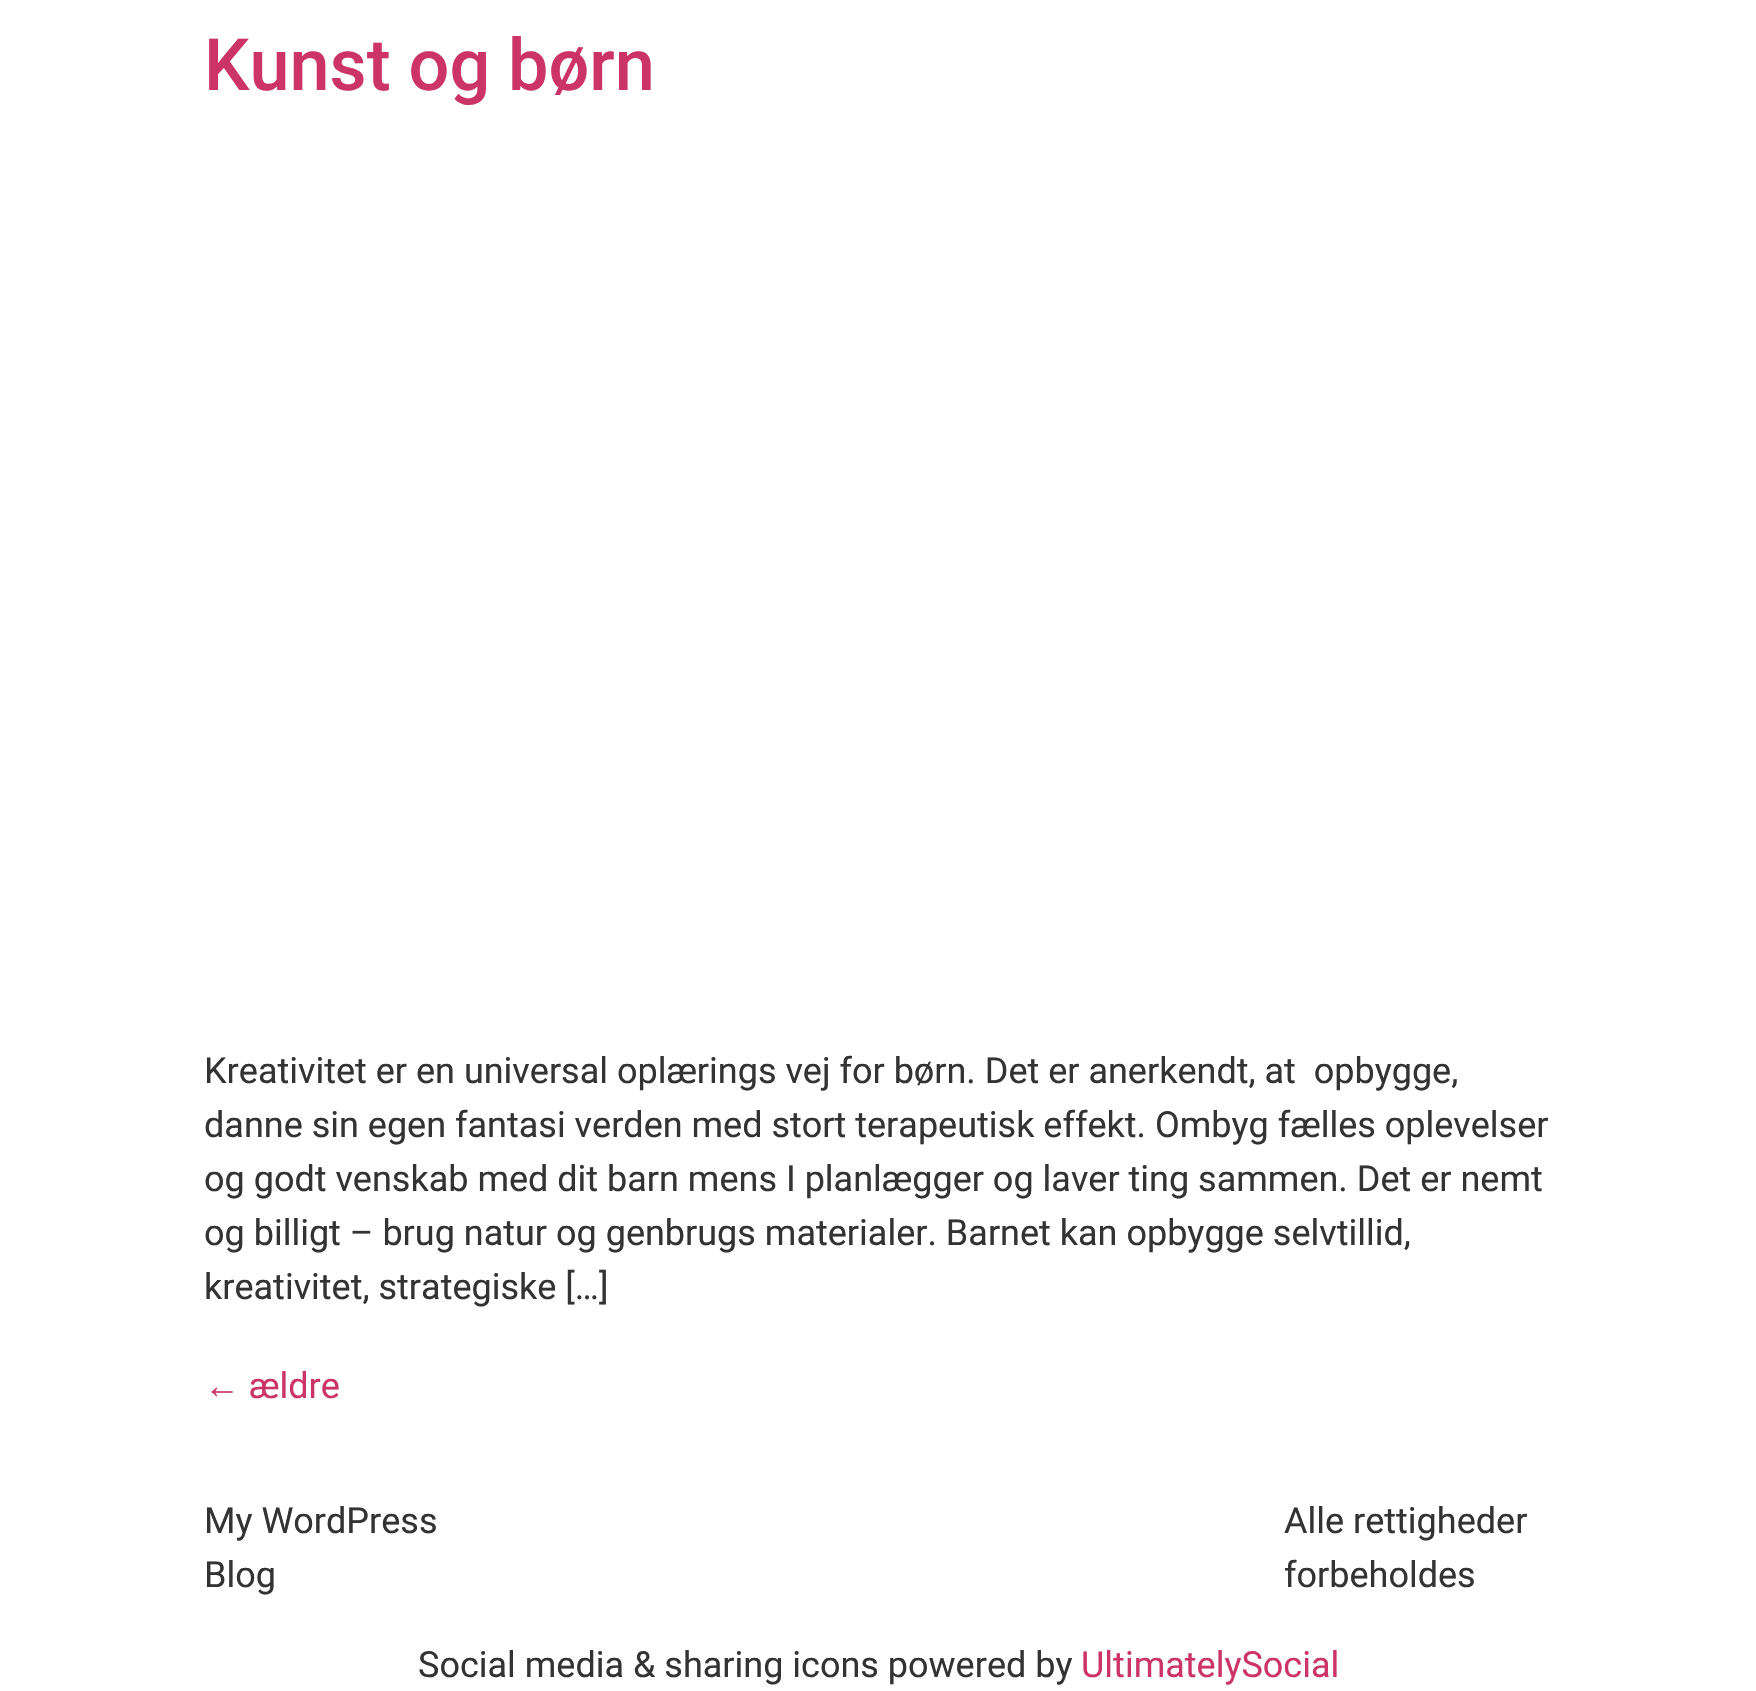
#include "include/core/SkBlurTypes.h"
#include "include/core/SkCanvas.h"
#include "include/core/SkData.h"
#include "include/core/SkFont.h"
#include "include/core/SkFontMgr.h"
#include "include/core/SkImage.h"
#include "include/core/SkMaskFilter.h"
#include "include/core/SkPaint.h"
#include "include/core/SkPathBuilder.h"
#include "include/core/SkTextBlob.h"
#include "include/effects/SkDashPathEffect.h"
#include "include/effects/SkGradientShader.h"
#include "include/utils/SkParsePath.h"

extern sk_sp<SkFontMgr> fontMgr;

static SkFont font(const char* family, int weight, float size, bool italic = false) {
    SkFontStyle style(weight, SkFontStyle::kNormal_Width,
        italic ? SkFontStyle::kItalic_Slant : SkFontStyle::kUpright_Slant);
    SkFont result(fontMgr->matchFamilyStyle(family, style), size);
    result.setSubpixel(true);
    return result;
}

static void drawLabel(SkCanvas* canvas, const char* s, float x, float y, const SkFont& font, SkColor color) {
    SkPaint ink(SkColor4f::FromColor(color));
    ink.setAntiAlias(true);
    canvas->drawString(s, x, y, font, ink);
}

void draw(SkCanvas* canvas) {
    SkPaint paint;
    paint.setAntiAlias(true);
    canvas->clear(0xFFFFFFFF);
    SkFont font1 = font("Roboto", 500, 72);
    drawLabel(canvas, "Kunst og børn", 204, 90, font1, 0xFFCC3366);
    SkFont font2 = font("Roboto", 400, 36);
    drawLabel(canvas, "Kreativitet er en universal oplærings vej for børn. Det er anerkendt, at  opbygge,", 204, 1083, font2, 0xFF333333);
    drawLabel(canvas, "danne sin egen fantasi verden med stort terapeutisk effekt. Ombyg fælles oplevelser", 204, 1137, font2, 0xFF333333);
    drawLabel(canvas, "og godt venskab med dit barn mens I planlægger og laver ting sammen. Det er nemt", 204, 1191, font2, 0xFF333333);
    drawLabel(canvas, "og billigt – brug natur og genbrugs materialer. Barnet kan opbygge selvtillid,", 204, 1245, font2, 0xFF333333);
    drawLabel(canvas, "kreativitet, strategiske […]", 204, 1299, font2, 0xFF333333);
    SkFont font3 = font("Liberation Sans", 400, 36);
    drawLabel(canvas, "←", 204, 1398, font3, 0xFFCC3366);
    drawLabel(canvas, "ældre", 249, 1398, font2, 0xFFCC3366);
    drawLabel(canvas, "My WordPress", 204, 1533, font2, 0xFF333333);
    drawLabel(canvas, "Blog", 204, 1587, font2, 0xFF333333);
    drawLabel(canvas, "Alle rettigheder", 1284, 1533, font2, 0xFF333333);
    drawLabel(canvas, "forbeholdes", 1284, 1587, font2, 0xFF333333);
    drawLabel(canvas, "Social media & sharing icons powered by", 418, 1677, font2, 0xFF333333);
    drawLabel(canvas, "UltimatelySocial", 1081, 1677, font2, 0xFFCC3366);
}
